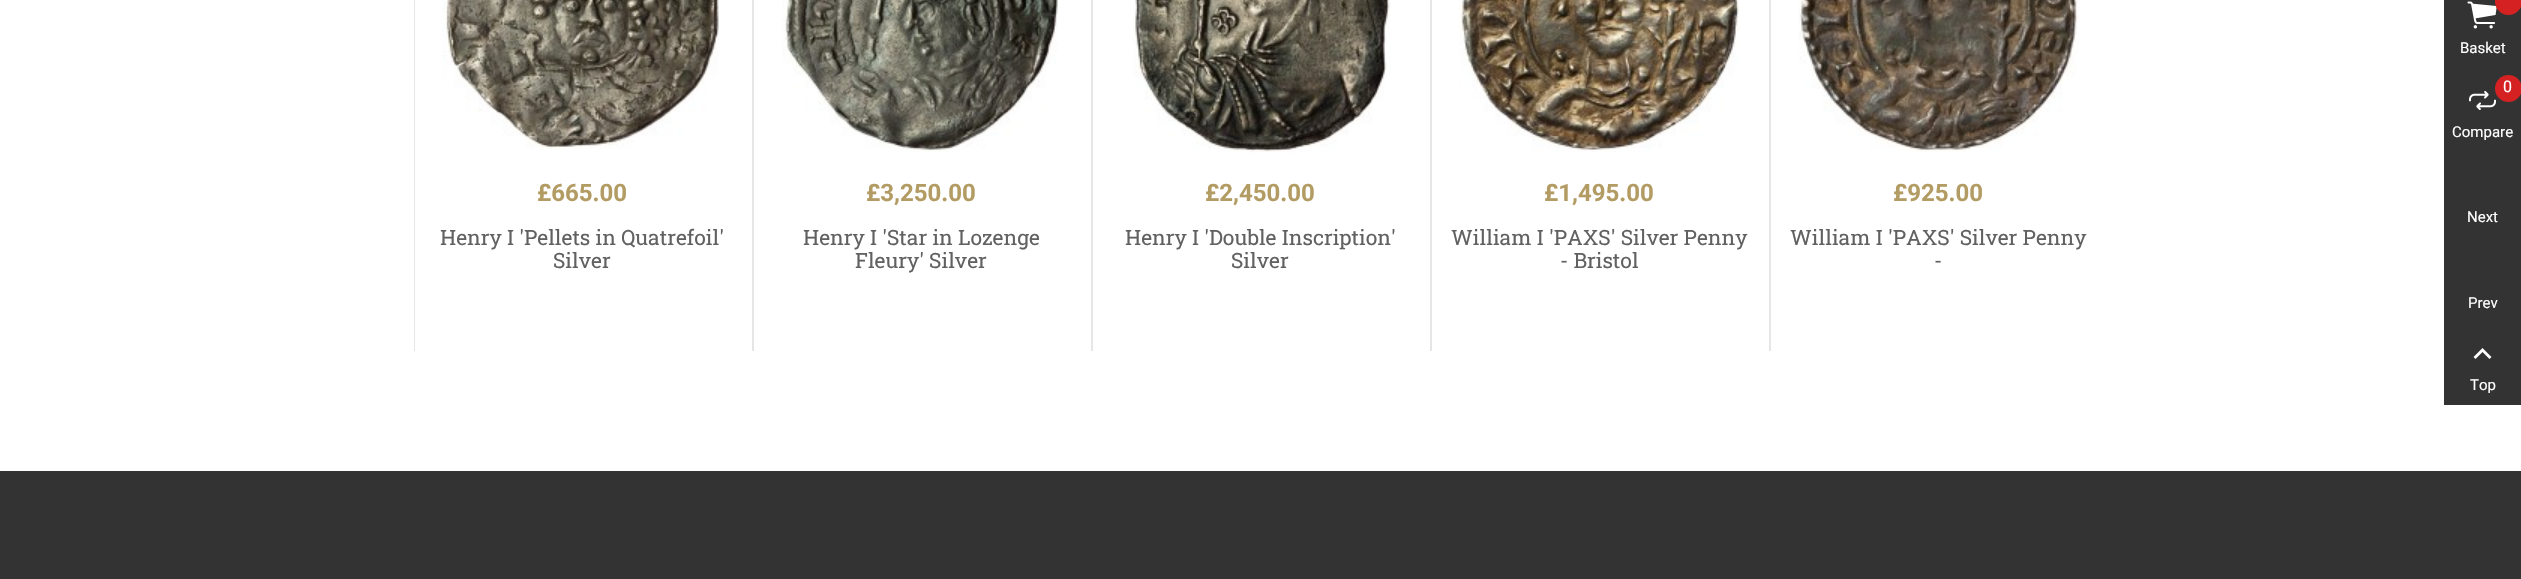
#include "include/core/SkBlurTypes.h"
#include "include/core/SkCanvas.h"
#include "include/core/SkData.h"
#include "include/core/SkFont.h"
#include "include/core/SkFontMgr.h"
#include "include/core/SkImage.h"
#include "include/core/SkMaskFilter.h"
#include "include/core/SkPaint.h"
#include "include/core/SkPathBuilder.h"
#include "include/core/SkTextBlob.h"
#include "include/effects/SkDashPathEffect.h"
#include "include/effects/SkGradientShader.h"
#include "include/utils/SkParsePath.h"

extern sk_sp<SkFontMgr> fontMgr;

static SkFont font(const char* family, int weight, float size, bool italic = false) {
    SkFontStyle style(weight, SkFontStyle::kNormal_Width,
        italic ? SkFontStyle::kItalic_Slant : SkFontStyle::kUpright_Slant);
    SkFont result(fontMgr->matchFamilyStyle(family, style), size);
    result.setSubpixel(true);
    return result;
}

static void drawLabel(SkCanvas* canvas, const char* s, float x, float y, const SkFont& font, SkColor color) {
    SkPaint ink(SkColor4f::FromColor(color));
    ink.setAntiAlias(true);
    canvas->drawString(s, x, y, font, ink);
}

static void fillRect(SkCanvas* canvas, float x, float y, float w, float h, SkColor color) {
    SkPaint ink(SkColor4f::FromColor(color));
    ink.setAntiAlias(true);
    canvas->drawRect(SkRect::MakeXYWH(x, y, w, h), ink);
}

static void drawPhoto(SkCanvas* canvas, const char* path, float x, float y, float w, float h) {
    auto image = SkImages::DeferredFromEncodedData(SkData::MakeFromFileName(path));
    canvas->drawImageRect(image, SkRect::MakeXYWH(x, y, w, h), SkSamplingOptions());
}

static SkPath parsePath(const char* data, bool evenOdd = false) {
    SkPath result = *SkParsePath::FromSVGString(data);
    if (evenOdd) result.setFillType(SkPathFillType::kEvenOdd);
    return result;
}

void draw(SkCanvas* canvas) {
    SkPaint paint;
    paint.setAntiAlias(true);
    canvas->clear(0xFFFFFFFF);
    fillRect(canvas, 414, 0, 1, 351, 0xFFE6E6E6);
    fillRect(canvas, 752, 0, 2, 351, 0xFFE6E6E6);
    drawPhoto(canvas, "assets/img1.png", 442, 0, 277, 149);
    SkFont font1 = font("Roboto", 700, 24);
    drawLabel(canvas, "£665.00", 537, 201, font1, 0xFFB39C63);
    SkFont font2 = font("Roboto Slab", 400, 21);
    drawLabel(canvas, "Henry I 'Pellets in Quatrefoil'", 440, 245, font2, 0xFF616161);
    drawLabel(canvas, "Silver", 553, 268, font2, 0xFF616161);
    fillRect(canvas, 1091, 0, 2, 351, 0xFFE6E6E6);
    drawPhoto(canvas, "assets/img2.png", 782, 0, 276, 152);
    drawLabel(canvas, "£3,250.00", 866, 201, font1, 0xFFB39C63);
    drawLabel(canvas, "Henry I 'Star in Lozenge", 803, 245, font2, 0xFF616161);
    drawLabel(canvas, "Fleury' Silver", 855, 268, font2, 0xFF616161);
    fillRect(canvas, 1430, 0, 2, 351, 0xFFE6E6E6);
    drawPhoto(canvas, "assets/img3.png", 1133, 0, 258, 153);
    drawLabel(canvas, "£2,450.00", 1205, 201, font1, 0xFFB39C63);
    drawLabel(canvas, "Henry I 'Double Inscription'", 1125, 245, font2, 0xFF616161);
    drawLabel(canvas, "Silver", 1231, 268, font2, 0xFF616161);
    fillRect(canvas, 1769, 0, 2, 351, 0xFFE6E6E6);
    drawPhoto(canvas, "assets/img4.png", 1459, 0, 281, 152);
    drawLabel(canvas, "£1,495.00", 1544, 201, font1, 0xFFB39C63);
    drawLabel(canvas, "William I 'PAXS' Silver Penny", 1451, 245, font2, 0xFF616161);
    drawLabel(canvas, "- Bristol", 1560, 268, font2, 0xFF616161);
    drawPhoto(canvas, "assets/img5.png", 1798, 0, 281, 152);
    drawLabel(canvas, "£925.00", 1893, 201, font1, 0xFFB39C63);
    drawLabel(canvas, "William I 'PAXS' Silver Penny", 1790, 245, font2, 0xFF616161);
    drawLabel(canvas, "-", 1934, 268, font2, 0xFF616161);
    fillRect(canvas, 2444, 0, 77, 405, 0xFF333333);
    drawPhoto(canvas, "assets/img6.png", 2467, 1, 30, 28);
    paint.setColor(0xFFD52121);
    canvas->drawCircle(2508.5f, 1.5f, 13.5f, paint);
    SkFont font3 = font("Roboto", 400, 15);
    drawLabel(canvas, "Basket", 2460, 53, font3, 0xFFFFFFFF);
    drawPhoto(canvas, "assets/img7.png", 2469, 90, 27, 20);
    canvas->drawCircle(2508.5f, 88.5f, 13.5f, paint);
    SkFont font4 = font("Roboto", 400, 16);
    drawLabel(canvas, "0", 2503, 92, font4, 0xFFFFFFFF);
    drawLabel(canvas, "Compare", 2452, 137, font3, 0xFFFFFFFF);
    drawLabel(canvas, "Next", 2467, 222, font3, 0xFFFFFFFF);
    drawLabel(canvas, "Prev", 2468, 308, font3, 0xFFFFFFFF);
    paint.setColor(0xFFFFFFFF);
    canvas->drawPath(parsePath("M2475.5 359L2473.5 357L2482.5 348L2491.5 357L2489.5 359L2482.5 352Z"), paint);
    drawLabel(canvas, "Top", 2470, 390, font3, 0xFFFFFFFF);
    fillRect(canvas, 0, 471, 2521, 108, 0xFF333333);
}
